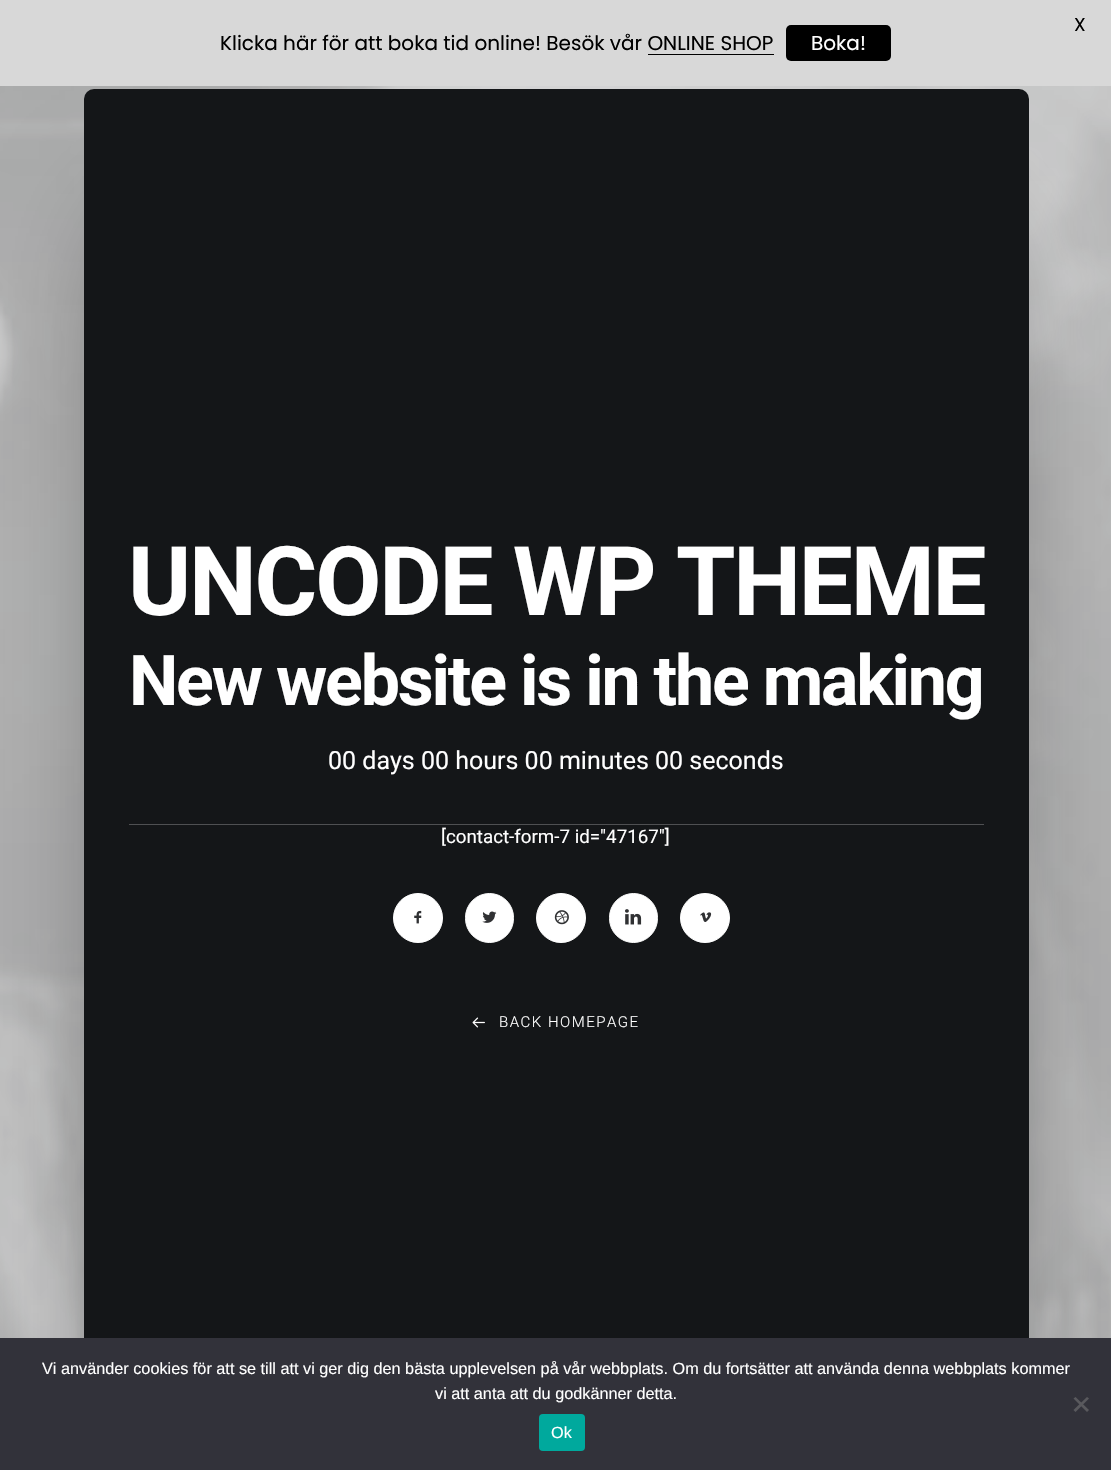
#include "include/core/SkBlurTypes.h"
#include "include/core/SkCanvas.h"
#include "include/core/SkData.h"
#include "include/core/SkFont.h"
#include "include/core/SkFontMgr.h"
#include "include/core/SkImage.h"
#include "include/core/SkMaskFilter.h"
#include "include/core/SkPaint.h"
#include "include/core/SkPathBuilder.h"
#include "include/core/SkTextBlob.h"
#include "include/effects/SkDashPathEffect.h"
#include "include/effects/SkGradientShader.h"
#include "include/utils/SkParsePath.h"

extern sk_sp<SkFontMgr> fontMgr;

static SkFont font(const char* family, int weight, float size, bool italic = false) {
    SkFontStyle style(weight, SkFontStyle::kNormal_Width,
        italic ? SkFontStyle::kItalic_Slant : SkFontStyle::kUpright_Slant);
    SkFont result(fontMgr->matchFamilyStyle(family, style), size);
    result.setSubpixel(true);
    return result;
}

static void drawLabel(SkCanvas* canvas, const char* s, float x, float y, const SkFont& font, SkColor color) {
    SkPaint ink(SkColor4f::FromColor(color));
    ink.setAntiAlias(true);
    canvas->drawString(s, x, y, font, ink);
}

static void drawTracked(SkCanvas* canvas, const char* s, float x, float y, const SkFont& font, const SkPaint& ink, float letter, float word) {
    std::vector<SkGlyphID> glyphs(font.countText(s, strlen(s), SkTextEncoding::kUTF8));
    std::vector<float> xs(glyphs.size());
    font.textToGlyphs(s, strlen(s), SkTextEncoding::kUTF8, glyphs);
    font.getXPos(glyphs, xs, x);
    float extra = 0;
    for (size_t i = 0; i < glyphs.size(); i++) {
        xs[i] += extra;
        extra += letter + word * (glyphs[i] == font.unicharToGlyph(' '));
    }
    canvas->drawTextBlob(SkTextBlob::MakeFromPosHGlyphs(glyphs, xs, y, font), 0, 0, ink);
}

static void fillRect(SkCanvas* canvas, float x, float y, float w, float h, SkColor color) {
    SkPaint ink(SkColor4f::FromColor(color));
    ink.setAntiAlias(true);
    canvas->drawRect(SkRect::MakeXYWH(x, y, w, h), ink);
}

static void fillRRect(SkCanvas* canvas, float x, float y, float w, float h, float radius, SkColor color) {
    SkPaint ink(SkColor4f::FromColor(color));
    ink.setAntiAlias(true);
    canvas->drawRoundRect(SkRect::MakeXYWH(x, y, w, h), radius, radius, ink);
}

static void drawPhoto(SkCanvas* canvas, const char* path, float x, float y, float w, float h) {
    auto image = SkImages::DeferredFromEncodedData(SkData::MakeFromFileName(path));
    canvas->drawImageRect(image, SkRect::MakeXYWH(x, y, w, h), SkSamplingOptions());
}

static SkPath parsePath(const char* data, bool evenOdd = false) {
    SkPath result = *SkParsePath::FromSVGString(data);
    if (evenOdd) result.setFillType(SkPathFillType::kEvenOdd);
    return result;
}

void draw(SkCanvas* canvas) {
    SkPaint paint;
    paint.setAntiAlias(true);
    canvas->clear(0xFFFFFFFF);
    drawPhoto(canvas, "assets/img1.png", 0, 86, 1111, 1252);
    paint.setColor(0x80000000);
    paint.setMaskFilter(SkMaskFilter::MakeBlur(kNormal_SkBlurStyle, 62.5f));
    canvas->drawRect(SkRect::MakeXYWH(134, 226, 845, 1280), paint);
    paint.setMaskFilter(nullptr);
    fillRect(canvas, 0, 0, 1111, 86, 0xFFD8D8D8);
    SkFont font1 = font("Poppins", 400, 18.75f);
    drawLabel(canvas, "X", 1074, 31, font1, 0xFF000000);
    SkFont font2 = font("Poppins", 400, 20);
    drawLabel(canvas, "Klicka här för att boka tid online! Besök vår ONLINE SHOP", 220, 50, font2, 0xFF000000);
    fillRect(canvas, 648, 54, 126, 1, 0xFF000000);
    fillRRect(canvas, 786, 25, 105, 36, 5, 0xFF000000);
    drawLabel(canvas, "Boka!", 811, 50, font2, 0xFFFFFFFF);
    fillRRect(canvas, 84, 89, 945, 1380, 10, 0xFF141618);
    SkFont font3 = font("Roboto", 700, 96);
    paint.setColor(0xFFFFFFFF);
    drawTracked(canvas, "UNCODE WP THEME", 128, 615, font3, paint, -2.2f, 0);
    SkFont font4 = font("Roboto", 700, 69.9f);
    drawTracked(canvas, "New website is in the making", 129, 705, font4, paint, -2.2f, 0);
    SkFont font5 = font("Roboto", 400, 25);
    drawLabel(canvas, "00 days 00 hours 00 minutes 00 seconds", 328, 769, font5, 0xFFFFFFFF);
    fillRect(canvas, 129, 824, 855, 1, 0xFF4F5052);
    SkFont font6 = font("Roboto", 400, 18.75f);
    drawLabel(canvas, "[contact-form-7 id=\"47167\"]", 441, 843, font6, 0xFFFFFFFF);
    canvas->drawCircle(418, 918, 24.5f, paint);
    paint.setStroke(true);
    paint.setStrokeWidth(1);
    canvas->drawCircle(418, 918, 24.5f, paint);
    drawPhoto(canvas, "assets/img2.png", 414, 910, 8, 14);
    paint.setStroke(false);
    canvas->drawRoundRect(SkRect::MakeXYWH(465.5f, 893.5f, 48, 49), 24, 24, paint);
    paint.setStroke(true);
    canvas->drawRoundRect(SkRect::MakeXYWH(465.5f, 893.5f, 48, 49), 24, 24, paint);
    drawPhoto(canvas, "assets/img3.png", 482, 911, 15, 12);
    paint.setStroke(false);
    canvas->drawCircle(561, 918, 24.5f, paint);
    paint.setStroke(true);
    canvas->drawCircle(561, 918, 24.5f, paint);
    drawPhoto(canvas, "assets/img4.png", 554, 910, 15, 15);
    paint.setStroke(false);
    canvas->drawRoundRect(SkRect::MakeXYWH(609.5f, 893.5f, 48, 49), 24, 24, paint);
    paint.setStroke(true);
    canvas->drawRoundRect(SkRect::MakeXYWH(609.5f, 893.5f, 48, 49), 24, 24, paint);
    drawPhoto(canvas, "assets/img5.png", 625, 909, 17, 16);
    paint.setStroke(false);
    canvas->drawCircle(705, 918, 24.5f, paint);
    paint.setStroke(true);
    canvas->drawCircle(705, 918, 24.5f, paint);
    drawPhoto(canvas, "assets/img6.png", 700, 912, 12, 10);
    drawPhoto(canvas, "assets/img7.png", 472, 1017, 13, 11);
    SkFont font7 = font("Roboto", 300, 15);
    paint.setStroke(false);
    drawTracked(canvas, "BACK HOMEPAGE", 499, 1027, font7, paint, 1.5f, 0);
    fillRect(canvas, 0, 1338, 1111, 132, 0xFF32323A);
    SkFont font8 = font("Liberation Sans", 400, 16.25f);
    drawLabel(canvas, "Vi använder cookies för att se till att vi ger dig den bästa upplevelsen på vår webbplats. Om du fortsätter att använda denna webbplats kommer", 42, 1374, font8, 0xFFFFFFFF);
    drawLabel(canvas, "vi att anta att du godkänner detta.", 435, 1399, font8, 0xFFFFFFFF);
    paint.setColor(0xFF59595D);
    canvas->drawPath(parsePath("M1087 1397L1089 1398.5L1075.5 1412L1073.5 1410Z"), paint);
    canvas->drawPath(parsePath("M1073.5 1398.5L1075.5 1397L1089 1410L1087 1412Z"), paint);
    fillRRect(canvas, 539, 1414, 46, 37, 4, 0xFF00A99D);
    drawLabel(canvas, "Ok", 551, 1438, font8, 0xFFFFFFFF);
}
